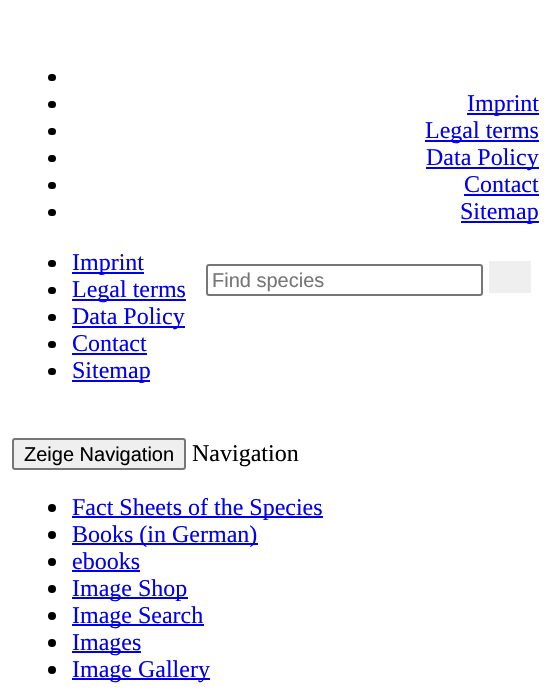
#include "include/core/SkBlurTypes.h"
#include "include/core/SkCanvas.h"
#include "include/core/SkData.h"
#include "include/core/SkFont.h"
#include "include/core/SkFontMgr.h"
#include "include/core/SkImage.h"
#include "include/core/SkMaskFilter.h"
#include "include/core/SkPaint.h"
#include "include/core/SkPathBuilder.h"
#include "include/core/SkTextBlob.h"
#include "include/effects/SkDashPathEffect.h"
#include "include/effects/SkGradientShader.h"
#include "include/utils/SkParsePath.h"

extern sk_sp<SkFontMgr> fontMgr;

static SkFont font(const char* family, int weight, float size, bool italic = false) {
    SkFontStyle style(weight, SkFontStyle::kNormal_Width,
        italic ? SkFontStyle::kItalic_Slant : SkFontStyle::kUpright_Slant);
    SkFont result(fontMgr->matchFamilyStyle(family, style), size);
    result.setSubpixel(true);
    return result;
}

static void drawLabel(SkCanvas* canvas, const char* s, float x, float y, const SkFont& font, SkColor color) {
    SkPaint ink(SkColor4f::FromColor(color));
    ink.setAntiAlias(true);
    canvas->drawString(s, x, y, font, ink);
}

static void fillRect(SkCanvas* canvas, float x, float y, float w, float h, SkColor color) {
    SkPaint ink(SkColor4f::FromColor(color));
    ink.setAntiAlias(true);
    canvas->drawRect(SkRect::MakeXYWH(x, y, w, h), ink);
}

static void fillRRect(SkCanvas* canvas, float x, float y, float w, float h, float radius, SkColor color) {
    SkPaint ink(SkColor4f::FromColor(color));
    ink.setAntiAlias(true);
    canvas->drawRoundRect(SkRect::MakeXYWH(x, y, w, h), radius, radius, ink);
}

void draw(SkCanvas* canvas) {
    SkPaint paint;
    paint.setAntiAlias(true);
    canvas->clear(0xFFFFFFFF);
    fillRRect(canvas, 48, 74, 8, 7, 3.5f, 0xFF000000);
    fillRRect(canvas, 48, 101, 8, 7, 3.5f, 0xFF000000);
    fillRect(canvas, 467, 113, 72, 2, 0xFF0000EE);
    SkFont font1 = font("Liberation Serif", 400, 24);
    drawLabel(canvas, "Imprint", 467, 111, font1, 0xFF0000EE);
    fillRRect(canvas, 48, 128, 8, 7, 3.5f, 0xFF000000);
    fillRect(canvas, 425, 140, 114, 2, 0xFF0000EE);
    drawLabel(canvas, "Legal terms", 425, 138, font1, 0xFF0000EE);
    fillRRect(canvas, 48, 155, 8, 7, 3.5f, 0xFF000000);
    fillRect(canvas, 426, 167, 113, 2, 0xFF0000EE);
    drawLabel(canvas, "Data Policy", 426, 165, font1, 0xFF0000EE);
    fillRRect(canvas, 48, 182, 8, 7, 3.5f, 0xFF000000);
    drawLabel(canvas, "Contact", 464, 192, font1, 0xFF0000EE);
    fillRect(canvas, 464, 194, 75, 2, 0xFF0000EE);
    fillRRect(canvas, 48, 209, 8, 7, 3.5f, 0xFF000000);
    fillRect(canvas, 461, 221, 78, 2, 0xFF0000EE);
    drawLabel(canvas, "Sitemap", 460, 219, font1, 0xFF0000EE);
    paint.setStroke(true);
    paint.setStrokeWidth(2);
    paint.setColor(0xFF767676);
    canvas->drawRoundRect(SkRect::MakeXYWH(207, 265, 275, 30), 2, 2, paint);
    SkFont font2 = font("Liberation Sans", 400, 20);
    drawLabel(canvas, "Find species", 212, 287, font2, 0xFF757575);
    fillRect(canvas, 489, 261, 42, 32, 0xFFEFEFEF);
    fillRRect(canvas, 48, 260, 8, 7, 3.5f, 0xFF000000);
    fillRect(canvas, 72, 272, 72, 2, 0xFF0000EE);
    drawLabel(canvas, "Imprint", 72, 270, font1, 0xFF0000EE);
    fillRRect(canvas, 48, 287, 8, 7, 3.5f, 0xFF000000);
    fillRect(canvas, 72, 299, 114, 2, 0xFF0000EE);
    drawLabel(canvas, "Legal terms", 72, 297, font1, 0xFF0000EE);
    fillRRect(canvas, 48, 314, 8, 7, 3.5f, 0xFF000000);
    fillRect(canvas, 72, 326, 113, 2, 0xFF0000EE);
    drawLabel(canvas, "Data Policy", 72, 324, font1, 0xFF0000EE);
    fillRRect(canvas, 48, 341, 8, 7, 3.5f, 0xFF000000);
    drawLabel(canvas, "Contact", 72, 351, font1, 0xFF0000EE);
    fillRect(canvas, 72, 353, 75, 2, 0xFF0000EE);
    fillRRect(canvas, 48, 368, 8, 7, 3.5f, 0xFF000000);
    fillRect(canvas, 72, 380, 78, 2, 0xFF0000EE);
    drawLabel(canvas, "Sitemap", 72, 378, font1, 0xFF0000EE);
    paint.setStroke(false);
    paint.setColor(0xFFEFEFEF);
    canvas->drawRoundRect(SkRect::MakeXYWH(13, 439, 172, 30), 2, 2, paint);
    paint.setStroke(true);
    paint.setColor(0xFF767676);
    canvas->drawRoundRect(SkRect::MakeXYWH(13, 439, 172, 30), 2, 2, paint);
    drawLabel(canvas, "Zeige Navigation", 24, 461, font2, 0xFF000000);
    drawLabel(canvas, "Navigation", 192, 461, font1, 0xFF000000);
    paint.setStroke(false);
    paint.setColor(0xFF000000);
    canvas->drawCircle(52, 508, 4, paint);
    fillRect(canvas, 72, 516, 251, 2, 0xFF0000EE);
    drawLabel(canvas, "Fact Sheets of the Species", 72, 515, font1, 0xFF0000EE);
    canvas->drawCircle(52, 535, 4, paint);
    fillRect(canvas, 72, 543, 186, 2, 0xFF0000EE);
    drawLabel(canvas, "Books (in German)", 72, 542, font1, 0xFF0000EE);
    canvas->drawCircle(52, 562, 4, paint);
    drawLabel(canvas, "ebooks", 72, 569, font1, 0xFF0000EE);
    fillRect(canvas, 72, 570, 68, 2, 0xFF0000EE);
    canvas->drawCircle(52, 589, 4, paint);
    fillRect(canvas, 72, 597, 116, 2, 0xFF0000EE);
    drawLabel(canvas, "Image Shop", 72, 596, font1, 0xFF0000EE);
    canvas->drawCircle(52, 616, 4, paint);
    fillRect(canvas, 72, 624, 132, 2, 0xFF0000EE);
    drawLabel(canvas, "Image Search", 72, 623, font1, 0xFF0000EE);
    canvas->drawCircle(52, 643, 4, paint);
    fillRect(canvas, 72, 651, 69, 2, 0xFF0000EE);
    drawLabel(canvas, "Images", 72, 650, font1, 0xFF0000EE);
    canvas->drawCircle(52, 670, 4, paint);
    fillRect(canvas, 72, 678, 138, 2, 0xFF0000EE);
    drawLabel(canvas, "Image Gallery", 72, 677, font1, 0xFF0000EE);
}
